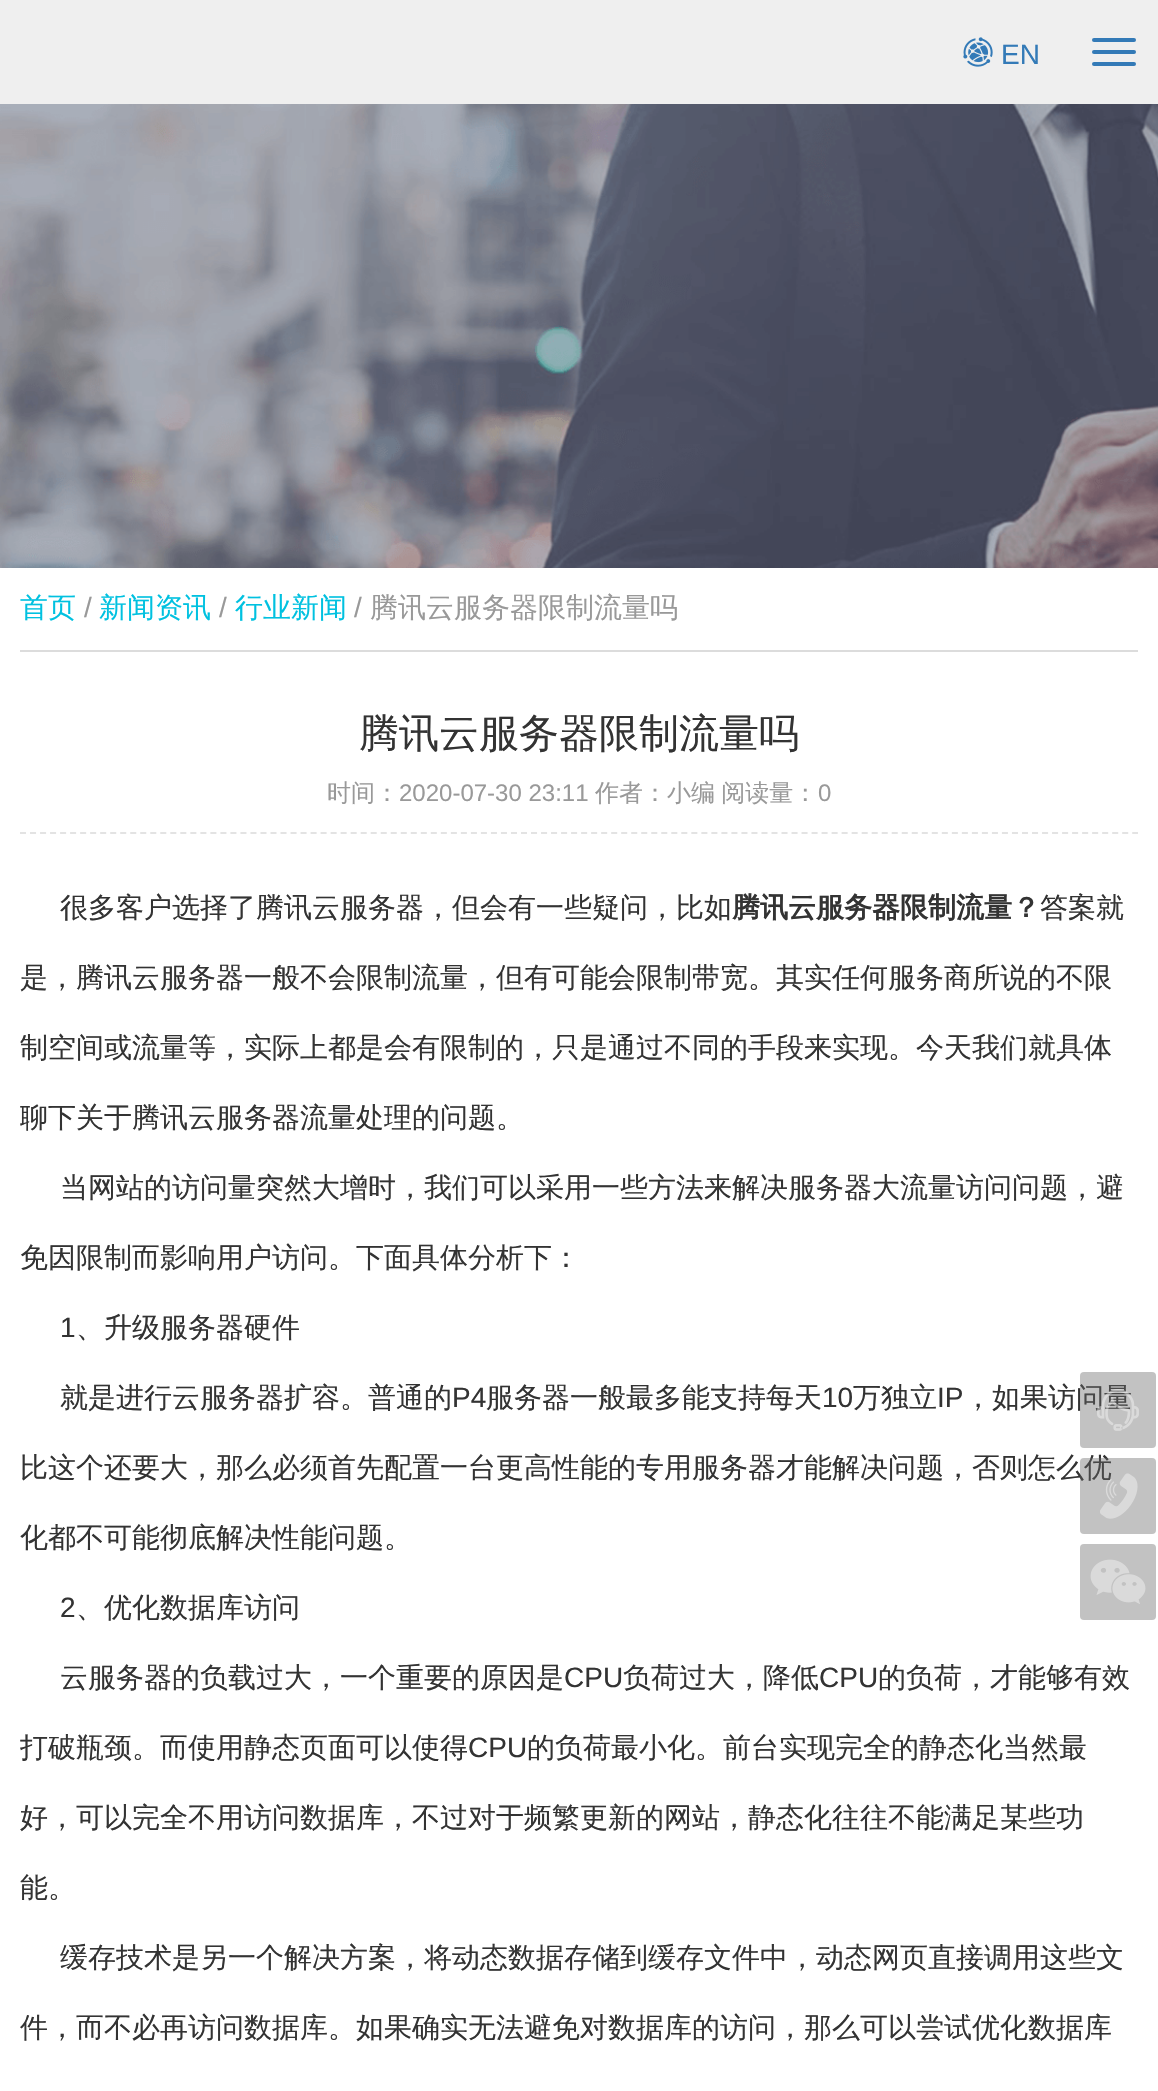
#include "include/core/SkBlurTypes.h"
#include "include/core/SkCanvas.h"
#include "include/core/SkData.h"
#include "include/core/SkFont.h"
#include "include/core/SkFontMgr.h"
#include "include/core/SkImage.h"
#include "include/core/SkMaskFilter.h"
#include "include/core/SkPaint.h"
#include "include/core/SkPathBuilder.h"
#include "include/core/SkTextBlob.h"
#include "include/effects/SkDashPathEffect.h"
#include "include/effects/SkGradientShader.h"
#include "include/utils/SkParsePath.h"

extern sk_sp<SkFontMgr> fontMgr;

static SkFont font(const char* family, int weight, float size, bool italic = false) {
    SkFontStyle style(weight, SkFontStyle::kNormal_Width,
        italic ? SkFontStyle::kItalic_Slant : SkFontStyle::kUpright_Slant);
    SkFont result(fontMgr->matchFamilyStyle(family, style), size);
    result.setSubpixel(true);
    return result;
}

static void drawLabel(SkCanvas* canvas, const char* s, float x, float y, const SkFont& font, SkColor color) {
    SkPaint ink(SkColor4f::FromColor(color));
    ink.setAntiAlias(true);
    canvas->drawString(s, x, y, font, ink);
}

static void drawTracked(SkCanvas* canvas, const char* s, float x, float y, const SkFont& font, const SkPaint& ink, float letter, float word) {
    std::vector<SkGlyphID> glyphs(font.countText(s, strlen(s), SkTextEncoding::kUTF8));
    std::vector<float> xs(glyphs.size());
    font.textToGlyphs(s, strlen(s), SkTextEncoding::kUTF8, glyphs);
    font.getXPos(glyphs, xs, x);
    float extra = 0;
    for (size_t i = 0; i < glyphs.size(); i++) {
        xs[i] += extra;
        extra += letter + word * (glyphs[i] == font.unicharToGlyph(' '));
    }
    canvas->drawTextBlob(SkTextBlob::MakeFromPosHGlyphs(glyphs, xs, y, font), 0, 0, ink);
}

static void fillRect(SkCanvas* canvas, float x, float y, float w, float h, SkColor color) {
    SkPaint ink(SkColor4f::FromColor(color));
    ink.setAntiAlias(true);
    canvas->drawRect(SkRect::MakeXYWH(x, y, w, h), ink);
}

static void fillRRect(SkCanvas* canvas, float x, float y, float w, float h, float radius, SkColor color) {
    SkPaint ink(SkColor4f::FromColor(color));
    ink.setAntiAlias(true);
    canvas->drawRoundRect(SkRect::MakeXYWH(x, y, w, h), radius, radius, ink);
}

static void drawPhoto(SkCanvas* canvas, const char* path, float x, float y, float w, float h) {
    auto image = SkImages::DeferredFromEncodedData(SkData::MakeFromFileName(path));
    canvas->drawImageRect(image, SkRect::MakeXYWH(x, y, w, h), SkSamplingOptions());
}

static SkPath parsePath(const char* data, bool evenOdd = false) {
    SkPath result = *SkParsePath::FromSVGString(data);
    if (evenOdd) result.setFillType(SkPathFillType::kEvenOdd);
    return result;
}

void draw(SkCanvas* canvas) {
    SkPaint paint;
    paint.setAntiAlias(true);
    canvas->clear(0xFFFFFFFF);
    fillRect(canvas, 0, 0, 1158, 104, 0xFFEFEFEF);
    drawPhoto(canvas, "assets/img1.png", 963, 37, 30, 30);
    SkFont font1 = font("Liberation Sans", 400, 28);
    drawLabel(canvas, "EN", 1001, 64, font1, 0xFF337AB7);
    fillRRect(canvas, 1092, 38, 44, 4, 2, 0xFF337AB7);
    fillRRect(canvas, 1092, 50, 44, 4, 2, 0xFF337AB7);
    fillRRect(canvas, 1092, 62, 44, 4, 2, 0xFF337AB7);
    drawPhoto(canvas, "assets/img2.png", 0, 104, 1158, 464);
    fillRect(canvas, 20, 650, 1118, 2, 0xFFDCDCDC);
    SkFont font2 = font("WenQuanYi Zen Hei", 500, 28);
    drawLabel(canvas, "首页", 20, 617, font2, 0xFF00C1E0);
    drawLabel(canvas, "/", 84, 617, font1, 0xFF999999);
    drawLabel(canvas, "新闻资讯", 99, 617, font2, 0xFF00C1E0);
    drawLabel(canvas, "/", 219, 617, font1, 0xFF999999);
    drawLabel(canvas, "行业新闻", 235, 617, font2, 0xFF00C1E0);
    drawLabel(canvas, "/", 354, 617, font1, 0xFF999999);
    drawLabel(canvas, "腾讯云服务器限制流量吗", 370, 617, font2, 0xFF999999);
    paint.setStroke(true);
    paint.setStrokeWidth(2);
    paint.setColor(0xFFE3E3E3);
    paint.setPathEffect(SkDashPathEffect::Make({{6, 4.02f}}, 0));
    canvas->drawPath(parsePath("M20 833H1138"), paint);
    paint.setPathEffect(nullptr);
    SkFont font3 = font("WenQuanYi Zen Hei", 500, 40);
    drawLabel(canvas, "腾讯云服务器限制流量吗", 359, 747, font3, 0xFF333333);
    SkFont font4 = font("WenQuanYi Zen Hei", 500, 24);
    drawLabel(canvas, "时间：", 327, 801, font4, 0xFF999999);
    SkFont font5 = font("Liberation Sans", 400, 24);
    drawLabel(canvas, "2020-07-30 23:11", 399, 801, font5, 0xFF999999);
    paint.setStroke(false);
    paint.setColor(0xFF999999);
    drawTracked(canvas, "作者：小编 阅读量：", 595, 801, font4, paint, 0, -1);
    drawLabel(canvas, "0", 818, 801, font5, 0xFF999999);
    drawLabel(canvas, "很多客户选择了腾讯云服务器，但会有一些疑问，比如", 60, 917, font2, 0xFF333333);
    SkFont font6 = font("WenQuanYi Zen Hei", 700, 28);
    drawLabel(canvas, "腾讯云服务器限制流量？", 732, 917, font6, 0xFF333333);
    drawLabel(canvas, "答案就", 1040, 917, font2, 0xFF333333);
    drawLabel(canvas, "是，腾讯云服务器一般不会限制流量，但有可能会限制带宽。其实任何服务商所说的不限", 20, 987, font2, 0xFF333333);
    drawLabel(canvas, "制空间或流量等，实际上都是会有限制的，只是通过不同的手段来实现。今天我们就具体", 20, 1057, font2, 0xFF333333);
    drawLabel(canvas, "聊下关于腾讯云服务器流量处理的问题。", 20, 1127, font2, 0xFF333333);
    drawLabel(canvas, "当网站的访问量突然大增时，我们可以采用一些方法来解决服务器大流量访问问题，避", 60, 1197, font2, 0xFF333333);
    drawLabel(canvas, "免因限制而影响用户访问。下面具体分析下：", 20, 1267, font2, 0xFF333333);
    drawLabel(canvas, "1", 60, 1337, font1, 0xFF333333);
    drawLabel(canvas, "、升级服务器硬件", 76, 1337, font2, 0xFF333333);
    drawLabel(canvas, "就是进行云服务器扩容。普通的", 60, 1407, font2, 0xFF333333);
    drawLabel(canvas, "P4", 452, 1407, font1, 0xFF333333);
    drawLabel(canvas, "服务器一般最多能支持每天", 486, 1407, font2, 0xFF333333);
    drawLabel(canvas, "10", 822, 1407, font1, 0xFF333333);
    drawLabel(canvas, "万独立", 853, 1407, font2, 0xFF333333);
    drawLabel(canvas, "IP", 937, 1407, font1, 0xFF333333);
    drawLabel(canvas, "，如果访问量", 964, 1407, font2, 0xFF333333);
    drawLabel(canvas, "比这个还要大，那么必须首先配置一台更高性能的专用服务器才能解决问题，否则怎么优", 20, 1477, font2, 0xFF333333);
    drawLabel(canvas, "化都不可能彻底解决性能问题。", 20, 1547, font2, 0xFF333333);
    drawLabel(canvas, "2", 60, 1617, font1, 0xFF333333);
    drawLabel(canvas, "、优化数据库访问", 76, 1617, font2, 0xFF333333);
    drawLabel(canvas, "云服务器的负载过大，一个重要的原因是", 60, 1687, font2, 0xFF333333);
    drawLabel(canvas, "CPU", 564, 1687, font1, 0xFF333333);
    drawLabel(canvas, "负荷过大，降低", 623, 1687, font2, 0xFF333333);
    drawLabel(canvas, "CPU", 819, 1687, font1, 0xFF333333);
    drawLabel(canvas, "的负荷，才能够有效", 878, 1687, font2, 0xFF333333);
    drawLabel(canvas, "打破瓶颈。而使用静态页面可以使得", 20, 1757, font2, 0xFF333333);
    drawLabel(canvas, "CPU", 468, 1757, font1, 0xFF333333);
    drawLabel(canvas, "的负荷最小化。前台实现完全的静态化当然最", 527, 1757, font2, 0xFF333333);
    drawLabel(canvas, "好，可以完全不用访问数据库，不过对于频繁更新的网站，静态化往往不能满足某些功", 20, 1827, font2, 0xFF333333);
    drawLabel(canvas, "能。", 20, 1897, font2, 0xFF333333);
    drawLabel(canvas, "缓存技术是另一个解决方案，将动态数据存储到缓存文件中，动态网页直接调用这些文", 60, 1967, font2, 0xFF333333);
    drawLabel(canvas, "件，而不必再访问数据库。如果确实无法避免对数据库的访问，那么可以尝试优化数据库", 20, 2037, font2, 0xFF333333);
    fillRRect(canvas, 1080, 1372, 76, 76, 4, 0x66666666);
    drawPhoto(canvas, "assets/img3.png", 1097, 1389, 42, 42);
    fillRRect(canvas, 1080, 1458, 76, 76, 4, 0x66666666);
    drawPhoto(canvas, "assets/img4.png", 1100, 1473, 38, 46);
    fillRRect(canvas, 1080, 1544, 76, 76, 4, 0xFFC2C2C2);
    drawPhoto(canvas, "assets/img5.png", 1090, 1559, 56, 45);
}
